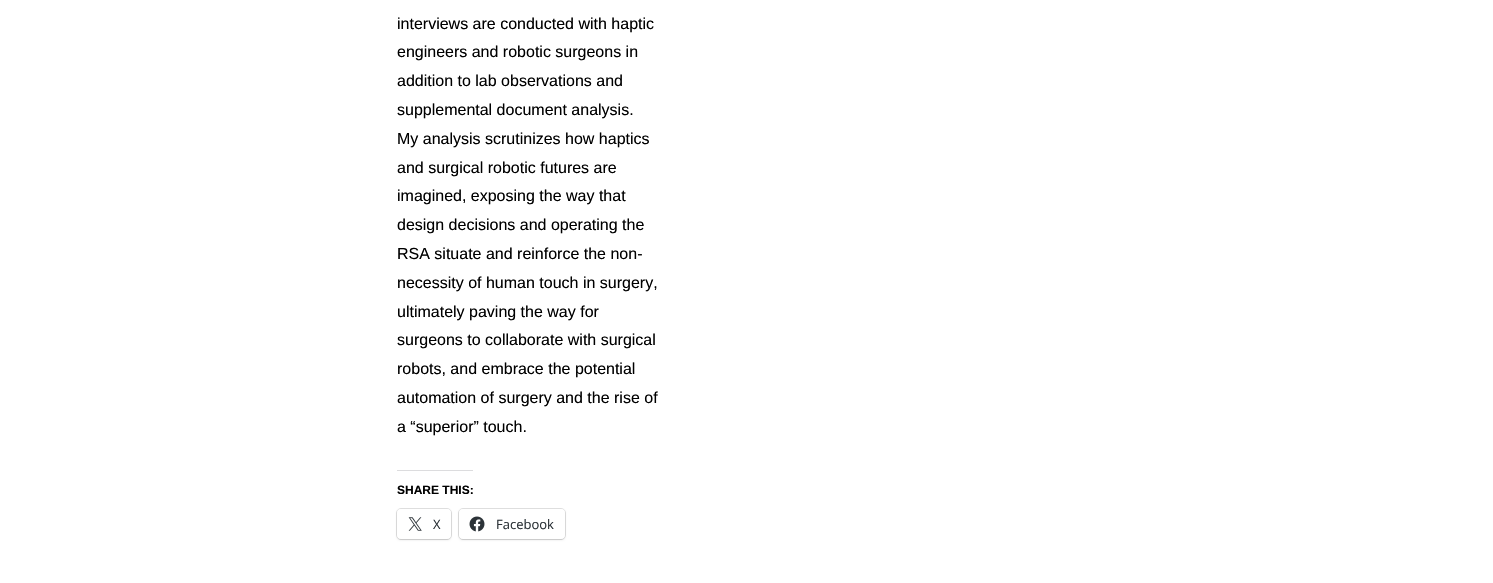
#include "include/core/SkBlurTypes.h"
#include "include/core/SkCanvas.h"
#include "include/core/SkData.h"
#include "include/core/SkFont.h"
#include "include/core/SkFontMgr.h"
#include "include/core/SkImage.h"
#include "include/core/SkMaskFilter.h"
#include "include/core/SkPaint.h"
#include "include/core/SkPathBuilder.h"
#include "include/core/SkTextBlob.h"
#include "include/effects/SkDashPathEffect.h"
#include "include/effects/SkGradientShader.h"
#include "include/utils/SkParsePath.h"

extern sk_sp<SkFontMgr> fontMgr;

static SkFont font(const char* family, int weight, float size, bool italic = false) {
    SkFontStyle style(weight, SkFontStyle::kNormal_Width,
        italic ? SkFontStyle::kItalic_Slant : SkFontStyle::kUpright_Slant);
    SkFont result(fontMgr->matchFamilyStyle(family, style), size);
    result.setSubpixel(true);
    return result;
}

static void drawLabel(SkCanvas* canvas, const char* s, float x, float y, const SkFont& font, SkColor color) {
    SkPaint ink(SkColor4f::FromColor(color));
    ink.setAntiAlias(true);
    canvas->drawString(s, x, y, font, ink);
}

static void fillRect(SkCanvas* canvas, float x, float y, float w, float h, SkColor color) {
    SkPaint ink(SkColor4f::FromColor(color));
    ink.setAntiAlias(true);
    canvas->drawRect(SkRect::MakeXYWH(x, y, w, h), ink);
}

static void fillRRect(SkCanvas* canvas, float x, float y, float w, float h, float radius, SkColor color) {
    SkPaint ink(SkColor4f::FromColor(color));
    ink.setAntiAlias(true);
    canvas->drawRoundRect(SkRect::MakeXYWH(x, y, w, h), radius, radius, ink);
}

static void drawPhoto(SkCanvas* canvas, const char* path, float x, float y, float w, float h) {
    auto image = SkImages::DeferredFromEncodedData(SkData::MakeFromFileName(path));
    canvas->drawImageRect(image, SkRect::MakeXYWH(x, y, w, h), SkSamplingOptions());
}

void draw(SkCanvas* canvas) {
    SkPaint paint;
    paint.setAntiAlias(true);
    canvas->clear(0xFFFFFFFF);
    SkFont font1 = font("Liberation Sans", 400, 16);
    drawLabel(canvas, "interviews are conducted with haptic", 397, 29, font1, 0xFF000000);
    drawLabel(canvas, "engineers and robotic surgeons in", 397, 57, font1, 0xFF000000);
    drawLabel(canvas, "addition to lab observations and", 397, 86, font1, 0xFF000000);
    drawLabel(canvas, "supplemental document analysis.", 397, 115, font1, 0xFF000000);
    drawLabel(canvas, "My analysis scrutinizes how haptics", 397, 144, font1, 0xFF000000);
    drawLabel(canvas, "and surgical robotic futures are", 397, 173, font1, 0xFF000000);
    drawLabel(canvas, "imagined, exposing the way that", 397, 201, font1, 0xFF000000);
    drawLabel(canvas, "design decisions and operating the", 397, 230, font1, 0xFF000000);
    drawLabel(canvas, "RSA situate and reinforce the non-", 397, 259, font1, 0xFF000000);
    drawLabel(canvas, "necessity of human touch in surgery,", 397, 288, font1, 0xFF000000);
    drawLabel(canvas, "ultimately paving the way for", 397, 317, font1, 0xFF000000);
    drawLabel(canvas, "surgeons to collaborate with surgical", 397, 345, font1, 0xFF000000);
    drawLabel(canvas, "robots, and embrace the potential", 397, 374, font1, 0xFF000000);
    drawLabel(canvas, "automation of surgery and the rise of", 397, 403, font1, 0xFF000000);
    drawLabel(canvas, "a “superior” touch.", 397, 432, font1, 0xFF000000);
    fillRect(canvas, 397, 470, 76, 1, 0xFFDCDCDE);
    SkFont font2 = font("Liberation Sans", 700, 12);
    drawLabel(canvas, "SHARE THIS:", 397, 494, font2, 0xFF000000);
    paint.setStroke(true);
    paint.setStrokeWidth(1);
    paint.setColor(0xFFE0E0E0);
    canvas->drawRoundRect(SkRect::MakeXYWH(396.5f, 508.5f, 55, 31), 4.5f, 4.5f, paint);
    paint.setStroke(false);
    paint.setColor(0x1F000000);
    paint.setMaskFilter(SkMaskFilter::MakeBlur(kNormal_SkBlurStyle, 1));
    canvas->drawRoundRect(SkRect::MakeXYWH(397, 510, 54, 30), 4, 4, paint);
    paint.setMaskFilter(nullptr);
    fillRRect(canvas, 397, 509, 54, 30, 4, 0xFFFFFFFF);
    drawPhoto(canvas, "assets/img1.png", 408, 517, 14, 14);
    SkFont font3 = font("Open Sans", 400, 13);
    drawLabel(canvas, "X", 433, 529, font3, 0xFF2C3338);
    paint.setStroke(true);
    paint.setColor(0xFFE0E0E0);
    canvas->drawRoundRect(SkRect::MakeXYWH(458.5f, 508.5f, 107, 31), 4.5f, 4.5f, paint);
    paint.setStroke(false);
    paint.setColor(0x1F000000);
    paint.setMaskFilter(SkMaskFilter::MakeBlur(kNormal_SkBlurStyle, 1));
    canvas->drawRoundRect(SkRect::MakeXYWH(459, 510, 106, 30), 4, 4, paint);
    paint.setMaskFilter(nullptr);
    fillRRect(canvas, 459, 509, 106, 30, 4, 0xFFFFFFFF);
    drawPhoto(canvas, "assets/img2.png", 469, 516, 16, 16);
    drawLabel(canvas, "Facebook", 496, 529, font3, 0xFF2C3338);
}
